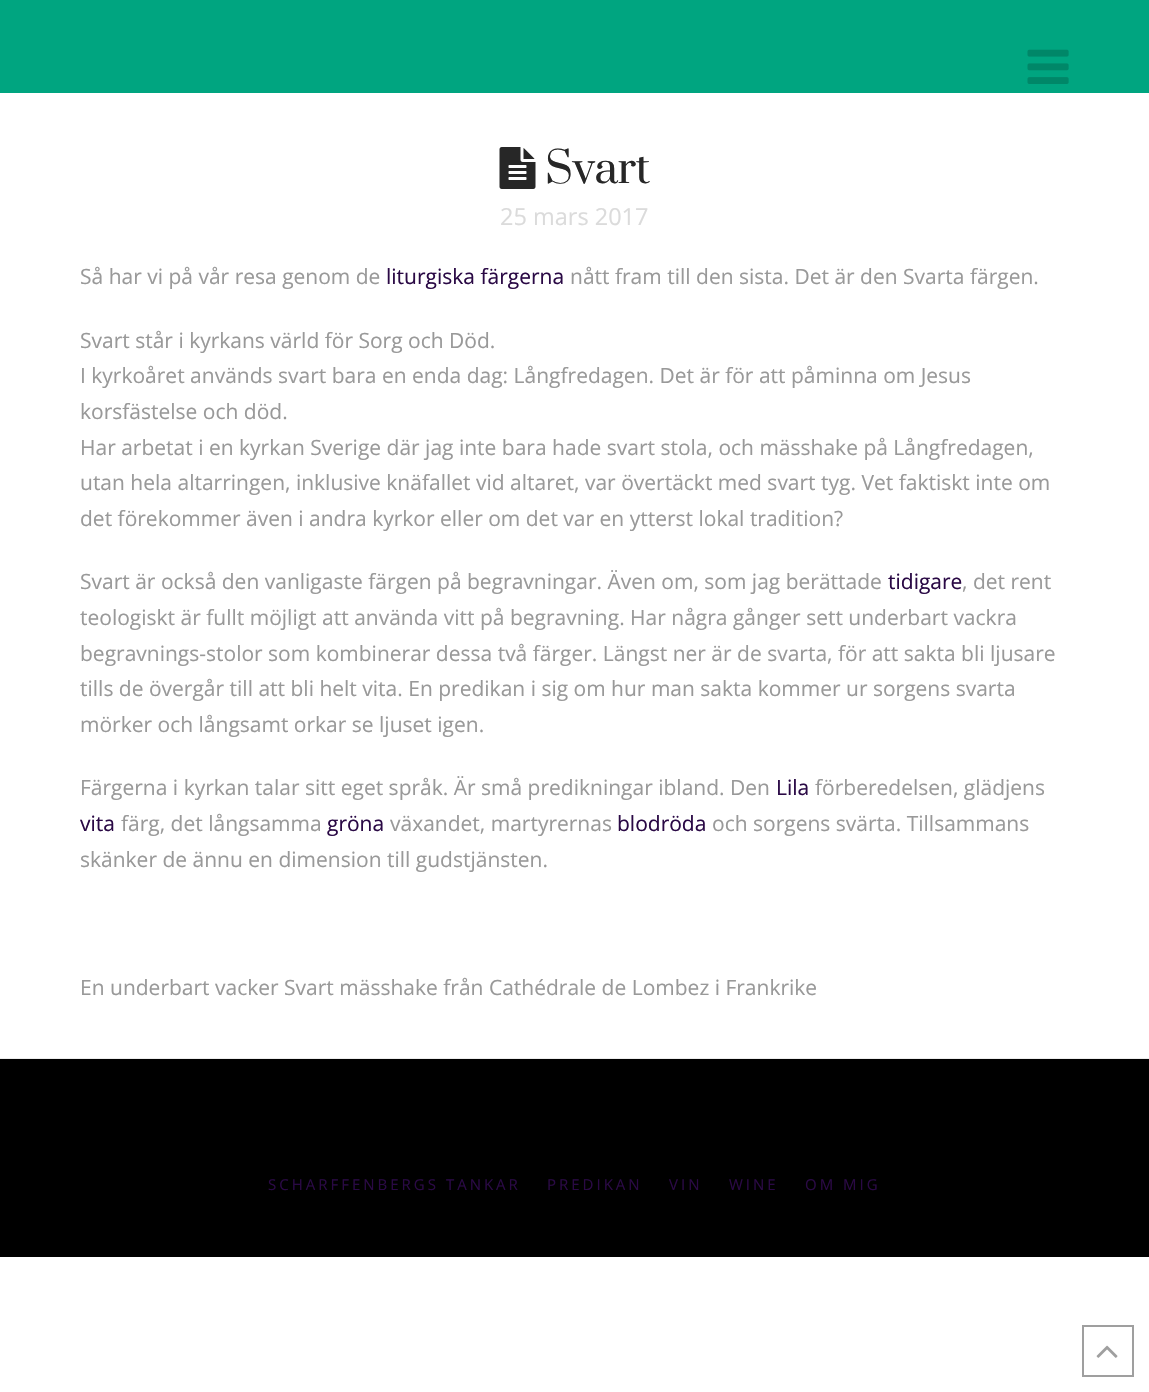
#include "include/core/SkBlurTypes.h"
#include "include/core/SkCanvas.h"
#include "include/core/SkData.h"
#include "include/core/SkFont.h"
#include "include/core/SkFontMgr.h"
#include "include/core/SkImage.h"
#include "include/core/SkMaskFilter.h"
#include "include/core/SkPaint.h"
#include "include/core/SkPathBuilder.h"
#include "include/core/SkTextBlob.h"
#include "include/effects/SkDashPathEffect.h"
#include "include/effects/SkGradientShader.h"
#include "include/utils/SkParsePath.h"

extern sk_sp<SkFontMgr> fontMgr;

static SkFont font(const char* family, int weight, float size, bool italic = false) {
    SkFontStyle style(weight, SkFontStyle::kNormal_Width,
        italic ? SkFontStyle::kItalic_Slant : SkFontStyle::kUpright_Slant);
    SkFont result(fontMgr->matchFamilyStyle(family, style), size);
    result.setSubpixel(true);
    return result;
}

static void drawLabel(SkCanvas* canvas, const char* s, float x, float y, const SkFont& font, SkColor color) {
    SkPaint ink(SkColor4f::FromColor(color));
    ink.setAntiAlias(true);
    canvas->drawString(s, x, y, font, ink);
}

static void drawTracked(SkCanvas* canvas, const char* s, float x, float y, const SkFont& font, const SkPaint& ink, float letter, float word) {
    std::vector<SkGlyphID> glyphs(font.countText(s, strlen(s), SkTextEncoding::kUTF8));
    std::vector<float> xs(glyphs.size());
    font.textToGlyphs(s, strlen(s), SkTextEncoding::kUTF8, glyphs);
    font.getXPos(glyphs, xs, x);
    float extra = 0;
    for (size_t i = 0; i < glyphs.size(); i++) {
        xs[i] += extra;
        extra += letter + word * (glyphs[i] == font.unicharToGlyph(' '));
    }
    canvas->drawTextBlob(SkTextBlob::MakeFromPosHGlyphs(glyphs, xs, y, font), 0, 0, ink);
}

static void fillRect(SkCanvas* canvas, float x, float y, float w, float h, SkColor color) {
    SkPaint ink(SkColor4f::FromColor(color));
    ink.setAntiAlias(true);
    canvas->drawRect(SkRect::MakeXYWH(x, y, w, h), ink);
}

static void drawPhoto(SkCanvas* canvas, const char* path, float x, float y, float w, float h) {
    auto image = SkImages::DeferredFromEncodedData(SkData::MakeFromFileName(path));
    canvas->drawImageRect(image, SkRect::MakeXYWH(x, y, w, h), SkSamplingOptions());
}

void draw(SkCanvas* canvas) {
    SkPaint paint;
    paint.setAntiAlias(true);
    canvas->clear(0xFFFFFFFF);
    fillRect(canvas, 0, 0, 1149, 93, 0xFF00A580);
    drawPhoto(canvas, "assets/img1.png", 1027, 49, 42, 35);
    fillRect(canvas, 0, 1058, 1149, 1, 0xFFECECEC);
    drawPhoto(canvas, "assets/img2.png", 499, 147, 37, 42);
    SkFont font1 = font("Prata", 400, 42);
    paint.setColor(0xFF272727);
    drawTracked(canvas, "Svart", 545, 183, font1, paint, -0.5f, 0);
    SkFont font2 = font("Open Sans", 400, 23.5f);
    drawLabel(canvas, "25 mars 2017", 500, 225, font2, 0xFFDBDBDB);
    SkFont font3 = font("Open Sans", 400, 21);
    drawLabel(canvas, "Så har vi på vår resa genom de", 80, 284, font3, 0xFF999999);
    drawLabel(canvas, "liturgiska färgerna", 386, 284, font3, 0xFF2A0945);
    drawLabel(canvas, "nått fram till den sista. Det är den Svarta färgen.", 570, 284, font3, 0xFF999999);
    drawLabel(canvas, "Svart står i kyrkans värld för Sorg och Död.", 80, 348, font3, 0xFF999999);
    drawLabel(canvas, "I kyrkoåret används svart bara en enda dag: Långfredagen. Det är för att påminna om Jesus", 80, 383, font3, 0xFF999999);
    drawLabel(canvas, "korsfästelse och död.", 80, 419, font3, 0xFF999999);
    drawLabel(canvas, "Har arbetat i en kyrkan Sverige där jag inte bara hade svart stola, och mässhake på Långfredagen,", 80, 455, font3, 0xFF999999);
    drawLabel(canvas, "utan hela altarringen, inklusive knäfallet vid altaret, var övertäckt med svart tyg. Vet faktiskt inte om", 80, 490, font3, 0xFF999999);
    drawLabel(canvas, "det förekommer även i andra kyrkor eller om det var en ytterst lokal tradition?", 80, 526, font3, 0xFF999999);
    drawLabel(canvas, "Svart är också den vanligaste färgen på begravningar. Även om, som jag berättade", 80, 589, font3, 0xFF999999);
    drawLabel(canvas, "tidigare", 888, 589, font3, 0xFF2A0945);
    drawLabel(canvas, ", det rent", 962, 589, font3, 0xFF999999);
    drawLabel(canvas, "teologiskt är fullt möjligt att använda vitt på begravning. Har några gånger sett underbart vackra", 80, 625, font3, 0xFF999999);
    drawLabel(canvas, "begravnings-stolor som kombinerar dessa två färger. Längst ner är de svarta, för att sakta bli ljusare", 80, 661, font3, 0xFF999999);
    drawLabel(canvas, "tills de övergår till att bli helt vita. En predikan i sig om hur man sakta kommer ur sorgens svarta", 80, 696, font3, 0xFF999999);
    drawLabel(canvas, "mörker och långsamt orkar se ljuset igen.", 80, 732, font3, 0xFF999999);
    drawLabel(canvas, "Färgerna i kyrkan talar sitt eget språk. Är små predikningar ibland. Den", 80, 795, font3, 0xFF999999);
    drawLabel(canvas, "Lila", 776, 795, font3, 0xFF2A0945);
    drawLabel(canvas, "förberedelsen, glädjens", 815, 795, font3, 0xFF999999);
    drawLabel(canvas, "vita", 80, 831, font3, 0xFF2A0945);
    drawLabel(canvas, "färg, det långsamma", 121, 831, font3, 0xFF999999);
    drawLabel(canvas, "gröna", 327, 831, font3, 0xFF2A0945);
    drawLabel(canvas, "växandet, martyrernas", 390, 831, font3, 0xFF999999);
    drawLabel(canvas, "blodröda", 617, 831, font3, 0xFF2A0945);
    drawLabel(canvas, "och sorgens svärta. Tillsammans", 712, 831, font3, 0xFF999999);
    drawLabel(canvas, "skänker de ännu en dimension till gudstjänsten.", 80, 867, font3, 0xFF999999);
    drawLabel(canvas, "En underbart vacker Svart mässhake från Cathédrale de Lombez i Frankrike", 80, 995, font3, 0xFF999999);
    fillRect(canvas, 0, 1059, 1149, 198, 0xFF000000);
    SkFont font4 = font("Open Sans", 400, 15);
    paint.setColor(0xFF2A0945);
    drawTracked(canvas, "SCHARFFENBERGS TANKAR", 268, 1190, font4, paint, 3, 0);
    drawTracked(canvas, "PREDIKAN", 547, 1190, font4, paint, 3, 0);
    drawTracked(canvas, "VIN", 669, 1190, font4, paint, 3, 0);
    drawTracked(canvas, "WINE", 729, 1190, font4, paint, 3, 0);
    drawTracked(canvas, "OM MIG", 805, 1190, font4, paint, 3, 0);
    paint.setStroke(true);
    paint.setStrokeWidth(2);
    paint.setColor(0xFF9F9F9F);
    canvas->drawRect(SkRect::MakeXYWH(1083, 1326, 50, 50), paint);
    drawPhoto(canvas, "assets/img3.png", 1096, 1345, 22, 13);
}
